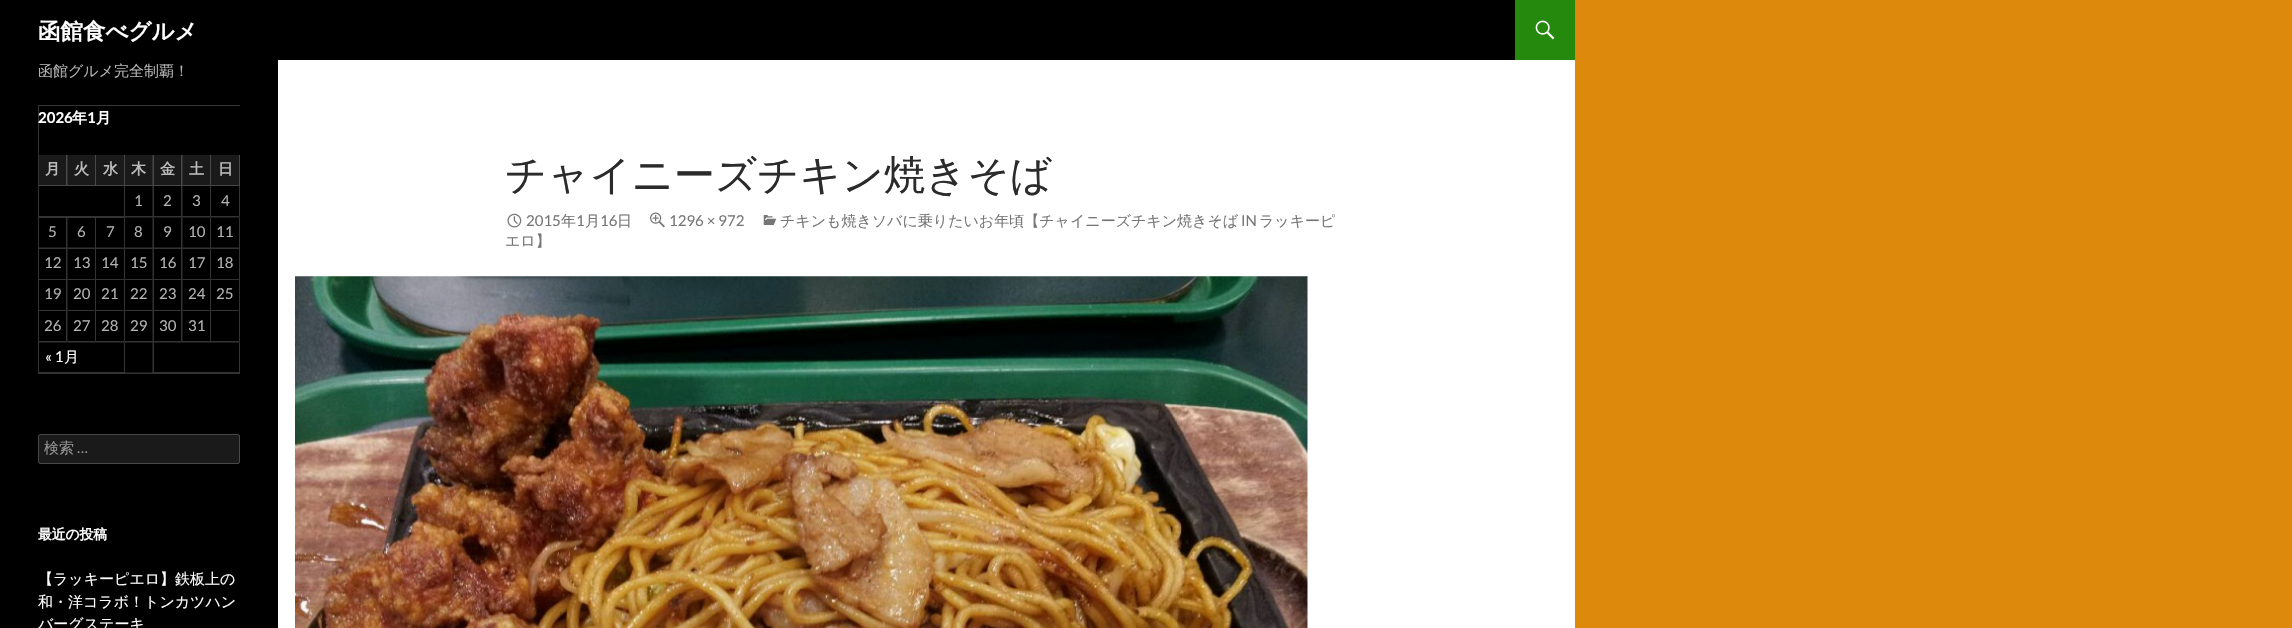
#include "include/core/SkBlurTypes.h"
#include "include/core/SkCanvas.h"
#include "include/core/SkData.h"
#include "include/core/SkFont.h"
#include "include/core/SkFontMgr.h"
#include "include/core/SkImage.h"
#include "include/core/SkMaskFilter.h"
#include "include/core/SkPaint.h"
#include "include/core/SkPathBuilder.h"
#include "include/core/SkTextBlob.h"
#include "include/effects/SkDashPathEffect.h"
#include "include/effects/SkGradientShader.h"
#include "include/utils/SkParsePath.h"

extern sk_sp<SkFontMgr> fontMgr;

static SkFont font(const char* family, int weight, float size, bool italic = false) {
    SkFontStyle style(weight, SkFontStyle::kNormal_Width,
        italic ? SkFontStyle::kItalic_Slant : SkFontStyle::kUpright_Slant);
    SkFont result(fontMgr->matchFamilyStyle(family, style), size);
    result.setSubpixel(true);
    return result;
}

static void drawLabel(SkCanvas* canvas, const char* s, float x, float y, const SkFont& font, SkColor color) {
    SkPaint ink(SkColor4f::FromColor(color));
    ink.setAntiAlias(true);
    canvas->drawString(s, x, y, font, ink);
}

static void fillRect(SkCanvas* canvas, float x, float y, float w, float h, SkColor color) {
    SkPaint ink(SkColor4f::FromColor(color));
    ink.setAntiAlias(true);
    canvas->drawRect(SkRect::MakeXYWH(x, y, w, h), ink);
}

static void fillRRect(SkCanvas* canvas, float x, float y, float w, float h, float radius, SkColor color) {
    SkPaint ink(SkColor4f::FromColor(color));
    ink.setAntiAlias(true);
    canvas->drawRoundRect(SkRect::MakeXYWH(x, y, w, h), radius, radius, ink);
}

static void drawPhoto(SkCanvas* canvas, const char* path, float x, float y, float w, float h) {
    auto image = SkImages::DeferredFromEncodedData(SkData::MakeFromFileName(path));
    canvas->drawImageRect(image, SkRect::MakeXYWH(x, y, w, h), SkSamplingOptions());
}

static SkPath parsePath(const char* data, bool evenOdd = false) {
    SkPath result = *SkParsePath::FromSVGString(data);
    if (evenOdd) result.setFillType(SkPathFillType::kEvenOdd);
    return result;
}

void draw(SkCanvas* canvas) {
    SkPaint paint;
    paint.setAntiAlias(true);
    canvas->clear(0xFFDD890B);
    fillRect(canvas, 278, 60, 1297, 568, 0xFFFFFFFF);
    fillRect(canvas, 0, 0, 1515, 60, 0xFF000000);
    SkFont font1 = font("WenQuanYi Zen Hei", 700, 22.5f);
    drawLabel(canvas, "函館食べグルメ", 38, 39, font1, 0xFFFFFFFF);
    fillRect(canvas, 1515, 0, 60, 60, 0xFF24890D);
    drawPhoto(canvas, "assets/img1.png", 1535, 20, 20, 20);
    fillRect(canvas, 0, 60, 278, 568, 0xFF000000);
    SkFont font2 = font("WenQuanYi Zen Hei", 500, 15);
    drawLabel(canvas, "函館グルメ完全制覇！", 38, 76, font2, 0xFFB3B3B3);
    paint.setColor(0xFF333333);
    canvas->drawPath(parsePath("M38 105H240V106H39Z"), paint);
    paint.setColor(0x33FFFFFF);
    canvas->drawPath(parsePath("M38 374V105L39 106V374Z"), paint);
    SkFont font3 = font("Lato", 700, 15);
    drawLabel(canvas, "2026", 38, 123, font3, 0xFFFFFFFF);
    SkFont font4 = font("WenQuanYi Zen Hei", 700, 15);
    drawLabel(canvas, "年", 72, 123, font4, 0xFFFFFFFF);
    drawLabel(canvas, "1", 87, 123, font3, 0xFFFFFFFF);
    drawLabel(canvas, "月", 96, 123, font4, 0xFFFFFFFF);
    fillRect(canvas, 39, 155, 201, 31, 0xFF1A1A1A);
    paint.setColor(0xFF484848);
    canvas->drawPath(parsePath("M67.5 155V186L66 185V155Z"), paint);
    paint.setColor(0x33FFFFFF);
    canvas->drawPath(parsePath("M67.5 186H39V185H66Z"), paint);
    drawLabel(canvas, "月", 45, 174, font4, 0xFFBABABA);
    paint.setColor(0xFF484848);
    canvas->drawPath(parsePath("M96 155V186L95 185V155Z"), paint);
    paint.setColor(0x33FFFFFF);
    canvas->drawPath(parsePath("M96 186H67.5V185H95Z"), paint);
    drawLabel(canvas, "火", 74, 174, font4, 0xFFBABABA);
    paint.setColor(0xFF484848);
    canvas->drawPath(parsePath("M125 155V186L124 185V155Z"), paint);
    paint.setColor(0x33FFFFFF);
    canvas->drawPath(parsePath("M125 186H96V185H124Z"), paint);
    drawLabel(canvas, "水", 103, 174, font4, 0xFFBABABA);
    paint.setColor(0xFF484848);
    canvas->drawPath(parsePath("M154 155V186L152.5 185V155Z"), paint);
    paint.setColor(0x33FFFFFF);
    canvas->drawPath(parsePath("M154 186H125V185H152.5Z"), paint);
    drawLabel(canvas, "木", 131, 174, font4, 0xFFBABABA);
    paint.setColor(0xFF484848);
    canvas->drawPath(parsePath("M182.5 155V186L181 185V155Z"), paint);
    paint.setColor(0x33FFFFFF);
    canvas->drawPath(parsePath("M182.5 186H154V185H181Z"), paint);
    drawLabel(canvas, "金", 160, 174, font4, 0xFFBABABA);
    paint.setColor(0xFF484848);
    canvas->drawPath(parsePath("M211 155V186L210 185V155Z"), paint);
    paint.setColor(0x33FFFFFF);
    canvas->drawPath(parsePath("M211 186H182.5V185H210Z"), paint);
    drawLabel(canvas, "土", 189, 174, font4, 0xFFBABABA);
    paint.setColor(0xFF484848);
    canvas->drawPath(parsePath("M240 155V186L239 185V155Z"), paint);
    paint.setColor(0x33FFFFFF);
    canvas->drawPath(parsePath("M240 186H211V185H239Z"), paint);
    drawLabel(canvas, "日", 218, 174, font4, 0xFFBABABA);
    paint.setColor(0xFF333333);
    canvas->drawPath(parsePath("M125 186V217.5L124 216V186Z"), paint);
    paint.setColor(0x33FFFFFF);
    canvas->drawPath(parsePath("M125 218H39V216H124Z"), paint);
    paint.setColor(0xFF333333);
    canvas->drawPath(parsePath("M154 186V217.5L152.5 216V186Z"), paint);
    paint.setColor(0x33FFFFFF);
    canvas->drawPath(parsePath("M154 217.5H125V216H152.5Z"), paint);
    SkFont font5 = font("Lato", 400, 15);
    drawLabel(canvas, "1", 134, 206, font5, 0xFFB3B3B3);
    paint.setColor(0xFF333333);
    canvas->drawPath(parsePath("M182.5 186V217.5L181 216V186Z"), paint);
    paint.setColor(0x33FFFFFF);
    canvas->drawPath(parsePath("M182.5 217.5H154V216H181Z"), paint);
    drawLabel(canvas, "2", 163, 206, font5, 0xFFB3B3B3);
    paint.setColor(0xFF333333);
    canvas->drawPath(parsePath("M211 186V217.5L210 216V186Z"), paint);
    paint.setColor(0x33FFFFFF);
    canvas->drawPath(parsePath("M211 217.5H182.5V216H210Z"), paint);
    drawLabel(canvas, "3", 192, 206, font5, 0xFFB3B3B3);
    paint.setColor(0xFF333333);
    canvas->drawPath(parsePath("M240 186V217.5L239 216V186Z"), paint);
    canvas->drawPath(parsePath("M240 217.5H211V216H239Z"), paint);
    drawLabel(canvas, "4", 221, 206, font5, 0xFFB3B3B3);
    canvas->drawPath(parsePath("M67.5 217.5V249L66 247.5V217.5Z"), paint);
    paint.setColor(0x33FFFFFF);
    canvas->drawPath(parsePath("M67.5 249H39V247.5H66Z"), paint);
    drawLabel(canvas, "5", 48, 237, font5, 0xFFB3B3B3);
    paint.setColor(0xFF333333);
    canvas->drawPath(parsePath("M96 217.5V249L95 247.5V217.5Z"), paint);
    paint.setColor(0x33FFFFFF);
    canvas->drawPath(parsePath("M96 249H67.5V247.5H95Z"), paint);
    drawLabel(canvas, "6", 77, 237, font5, 0xFFB3B3B3);
    paint.setColor(0xFF333333);
    canvas->drawPath(parsePath("M125 217.5V249L124 247.5V217.5Z"), paint);
    paint.setColor(0x33FFFFFF);
    canvas->drawPath(parsePath("M125 249H96V247.5H124Z"), paint);
    drawLabel(canvas, "7", 106, 237, font5, 0xFFB3B3B3);
    paint.setColor(0xFF333333);
    canvas->drawPath(parsePath("M154 217.5V249L152.5 247.5V217.5Z"), paint);
    paint.setColor(0x33FFFFFF);
    canvas->drawPath(parsePath("M154 249H125V247.5H152.5Z"), paint);
    drawLabel(canvas, "8", 134, 237, font5, 0xFFB3B3B3);
    paint.setColor(0xFF333333);
    canvas->drawPath(parsePath("M182.5 217.5V249L181 247.5V217.5Z"), paint);
    paint.setColor(0x33FFFFFF);
    canvas->drawPath(parsePath("M182.5 249H154V247.5H181Z"), paint);
    drawLabel(canvas, "9", 163, 237, font5, 0xFFB3B3B3);
    paint.setColor(0xFF333333);
    canvas->drawPath(parsePath("M211 217.5V249L210 247.5V217.5Z"), paint);
    paint.setColor(0x33FFFFFF);
    canvas->drawPath(parsePath("M211 249H182.5V247.5H210Z"), paint);
    drawLabel(canvas, "10", 188, 237, font5, 0xFFB3B3B3);
    paint.setColor(0xFF333333);
    canvas->drawPath(parsePath("M240 217.5V249L239 247.5V217.5Z"), paint);
    paint.setColor(0x33FFFFFF);
    canvas->drawPath(parsePath("M240 249H211V247.5H239Z"), paint);
    drawLabel(canvas, "11", 216, 237, font5, 0xFFB3B3B3);
    paint.setColor(0xFF333333);
    canvas->drawPath(parsePath("M67.5 249V280L66 279V249Z"), paint);
    paint.setColor(0x33FFFFFF);
    canvas->drawPath(parsePath("M67.5 280H39V279H66Z"), paint);
    drawLabel(canvas, "12", 44, 268, font5, 0xFFB3B3B3);
    paint.setColor(0xFF333333);
    canvas->drawPath(parsePath("M96 249V280L95 279V249Z"), paint);
    paint.setColor(0x33FFFFFF);
    canvas->drawPath(parsePath("M96 280H67.5V279H95Z"), paint);
    drawLabel(canvas, "13", 73, 268, font5, 0xFFB3B3B3);
    paint.setColor(0xFF333333);
    canvas->drawPath(parsePath("M125 249V280L124 279V249Z"), paint);
    paint.setColor(0x33FFFFFF);
    canvas->drawPath(parsePath("M125 280H96V279H124Z"), paint);
    drawLabel(canvas, "14", 101, 268, font5, 0xFFB3B3B3);
    paint.setColor(0xFF333333);
    canvas->drawPath(parsePath("M154 249V280L152.5 279V249Z"), paint);
    paint.setColor(0x33FFFFFF);
    canvas->drawPath(parsePath("M154 280H125V279H152.5Z"), paint);
    drawLabel(canvas, "15", 130, 268, font5, 0xFFB3B3B3);
    paint.setColor(0xFF333333);
    canvas->drawPath(parsePath("M182.5 249V280L181 279V249Z"), paint);
    paint.setColor(0x33FFFFFF);
    canvas->drawPath(parsePath("M182.5 280H154V279H181Z"), paint);
    drawLabel(canvas, "16", 159, 268, font5, 0xFFB3B3B3);
    paint.setColor(0xFF333333);
    canvas->drawPath(parsePath("M211 249V280L210 279V249Z"), paint);
    paint.setColor(0x33FFFFFF);
    canvas->drawPath(parsePath("M211 280H182.5V279H210Z"), paint);
    drawLabel(canvas, "17", 188, 268, font5, 0xFFB3B3B3);
    paint.setColor(0xFF333333);
    canvas->drawPath(parsePath("M240 249V280L239 279V249Z"), paint);
    paint.setColor(0x33FFFFFF);
    canvas->drawPath(parsePath("M240 280H211V279H239Z"), paint);
    drawLabel(canvas, "18", 216, 268, font5, 0xFFB3B3B3);
    paint.setColor(0xFF333333);
    canvas->drawPath(parsePath("M67.5 280V311L66 310V280Z"), paint);
    paint.setColor(0x33FFFFFF);
    canvas->drawPath(parsePath("M67.5 311H39V310H66Z"), paint);
    drawLabel(canvas, "19", 44, 299, font5, 0xFFB3B3B3);
    paint.setColor(0xFF333333);
    canvas->drawPath(parsePath("M96 280V311L95 310V280Z"), paint);
    paint.setColor(0x33FFFFFF);
    canvas->drawPath(parsePath("M96 311H67.5V310H95Z"), paint);
    drawLabel(canvas, "20", 73, 299, font5, 0xFFB3B3B3);
    paint.setColor(0xFF333333);
    canvas->drawPath(parsePath("M125 280V311L124 310V280Z"), paint);
    paint.setColor(0x33FFFFFF);
    canvas->drawPath(parsePath("M125 311H96V310H124Z"), paint);
    drawLabel(canvas, "21", 101, 299, font5, 0xFFB3B3B3);
    paint.setColor(0xFF333333);
    canvas->drawPath(parsePath("M154 280V311L152.5 310V280Z"), paint);
    paint.setColor(0x33FFFFFF);
    canvas->drawPath(parsePath("M154 311H125V310H152.5Z"), paint);
    drawLabel(canvas, "22", 130, 299, font5, 0xFFB3B3B3);
    paint.setColor(0xFF333333);
    canvas->drawPath(parsePath("M182.5 280V311L181 310V280Z"), paint);
    paint.setColor(0x33FFFFFF);
    canvas->drawPath(parsePath("M182.5 311H154V310H181Z"), paint);
    drawLabel(canvas, "23", 159, 299, font5, 0xFFB3B3B3);
    paint.setColor(0xFF333333);
    canvas->drawPath(parsePath("M211 280V311L210 310V280Z"), paint);
    paint.setColor(0x33FFFFFF);
    canvas->drawPath(parsePath("M211 311H182.5V310H210Z"), paint);
    drawLabel(canvas, "24", 188, 299, font5, 0xFFB3B3B3);
    paint.setColor(0xFF333333);
    canvas->drawPath(parsePath("M240 280V311L239 310V280Z"), paint);
    paint.setColor(0x33FFFFFF);
    canvas->drawPath(parsePath("M240 311H211V310H239Z"), paint);
    drawLabel(canvas, "25", 216, 299, font5, 0xFFB3B3B3);
    paint.setColor(0xFF333333);
    canvas->drawPath(parsePath("M67.5 311V342.5L66 341V311Z"), paint);
    paint.setColor(0x33FFFFFF);
    canvas->drawPath(parsePath("M67.5 342.5H39V341H66Z"), paint);
    drawLabel(canvas, "26", 44, 331, font5, 0xFFB3B3B3);
    paint.setColor(0xFF333333);
    canvas->drawPath(parsePath("M96 311V342.5L95 341V311Z"), paint);
    paint.setColor(0x33FFFFFF);
    canvas->drawPath(parsePath("M96 342.5H67.5V341H95Z"), paint);
    drawLabel(canvas, "27", 73, 331, font5, 0xFFB3B3B3);
    paint.setColor(0xFF333333);
    canvas->drawPath(parsePath("M125 342.5V374L124 372.5V342.5Z"), paint);
    canvas->drawPath(parsePath("M125 311V342.5L124 341V311Z"), paint);
    canvas->drawPath(parsePath("M154 342.5V374L152.5 372.5V342.5Z"), paint);
    canvas->drawPath(parsePath("M125 342.5H96V341H124ZM154 311V342.5L152.5 341V311Z"), paint);
    drawLabel(canvas, "28", 101, 331, font5, 0xFFB3B3B3);
    paint.setColor(0x33FFFFFF);
    canvas->drawPath(parsePath("M154 342.5H125V341H152.5Z"), paint);
    drawLabel(canvas, "29", 130, 331, font5, 0xFFB3B3B3);
    paint.setColor(0xFF333333);
    canvas->drawPath(parsePath("M182.5 311V342.5L181 341V311Z"), paint);
    paint.setColor(0x33FFFFFF);
    canvas->drawPath(parsePath("M182.5 342.5H154V341H181Z"), paint);
    drawLabel(canvas, "30", 159, 331, font5, 0xFFB3B3B3);
    paint.setColor(0xFF333333);
    canvas->drawPath(parsePath("M211 311V342.5L210 341V311Z"), paint);
    paint.setColor(0x33FFFFFF);
    canvas->drawPath(parsePath("M211 342.5H182.5V341H210Z"), paint);
    drawLabel(canvas, "31", 188, 331, font5, 0xFFB3B3B3);
    paint.setColor(0xFF333333);
    canvas->drawPath(parsePath("M240 342.5V374L239 372.5V342.5Z"), paint);
    canvas->drawPath(parsePath("M240 311V342.5L239 341V311Z"), paint);
    canvas->drawPath(parsePath("M240 342.5H211V341H239Z"), paint);
    paint.setColor(0x33FFFFFF);
    canvas->drawPath(parsePath("M125 374H39V372H124Z"), paint);
    drawLabel(canvas, "« 1", 45, 362, font5, 0xFFFFFFFF);
    drawLabel(canvas, "月", 64, 362, font2, 0xFFFFFFFF);
    canvas->drawPath(parsePath("M154 374H125V372.5H152.5Z"), paint);
    canvas->drawPath(parsePath("M240 374H154V372H239Z"), paint);
    fillRRect(canvas, 38, 434, 202, 30, 2.5f, 0xFF1A1A1A);
    paint.setStroke(true);
    paint.setStrokeWidth(1);
    canvas->drawRoundRect(SkRect::MakeXYWH(38.5f, 434.5f, 201, 29), 2, 2, paint);
    drawLabel(canvas, "検索", 44, 453, font2, 0xFF939393);
    drawLabel(canvas, "…", 77, 453, font5, 0xFF939393);
    SkFont font6 = font("WenQuanYi Zen Hei", 700, 13.75f);
    drawLabel(canvas, "最近の投稿", 38, 539, font6, 0xFFFFFFFF);
    drawLabel(canvas, "【ラッキーピエロ】鉄板上の", 38, 584, font2, 0xFFFFFFFF);
    drawLabel(canvas, "和・洋コラボ！トンカツハン", 38, 607, font2, 0xFFFFFFFF);
    drawLabel(canvas, "バーグステーキ", 38, 629, font2, 0xFFFFFFFF);
    SkFont font7 = font("WenQuanYi Zen Hei", 500, 41.25f);
    drawLabel(canvas, "チャイニーズチキン焼きそば", 505, 189, font7, 0xFF2B2B2B);
    drawPhoto(canvas, "assets/img2.png", 763, 215, 14, 10);
    drawLabel(canvas, "チキンも焼きソバに乗りたいお年頃【チャイニーズチキン焼きそば", 780, 226, font2, 0xFF767676);
    drawLabel(canvas, "IN", 1241, 226, font5, 0xFF767676);
    drawLabel(canvas, "ラッキーピ", 1259, 226, font2, 0xFF767676);
    drawLabel(canvas, "エロ】", 505, 246, font2, 0xFF767676);
    drawPhoto(canvas, "assets/img3.png", 507, 213, 15, 15);
    drawLabel(canvas, "2015", 526, 226, font5, 0xFF767676);
    drawLabel(canvas, "年", 561, 226, font2, 0xFF767676);
    drawLabel(canvas, "1", 576, 226, font5, 0xFF767676);
    drawLabel(canvas, "月", 585, 226, font2, 0xFF767676);
    drawLabel(canvas, "16", 600, 226, font5, 0xFF767676);
    drawLabel(canvas, "日", 617, 226, font2, 0xFF767676);
    drawPhoto(canvas, "assets/img4.png", 650, 212, 15, 16);
    drawLabel(canvas, "1296 × 972", 669, 226, font5, 0xFF767676);
    drawPhoto(canvas, "assets/img5.png", 295, 276, 1013, 352);
}
